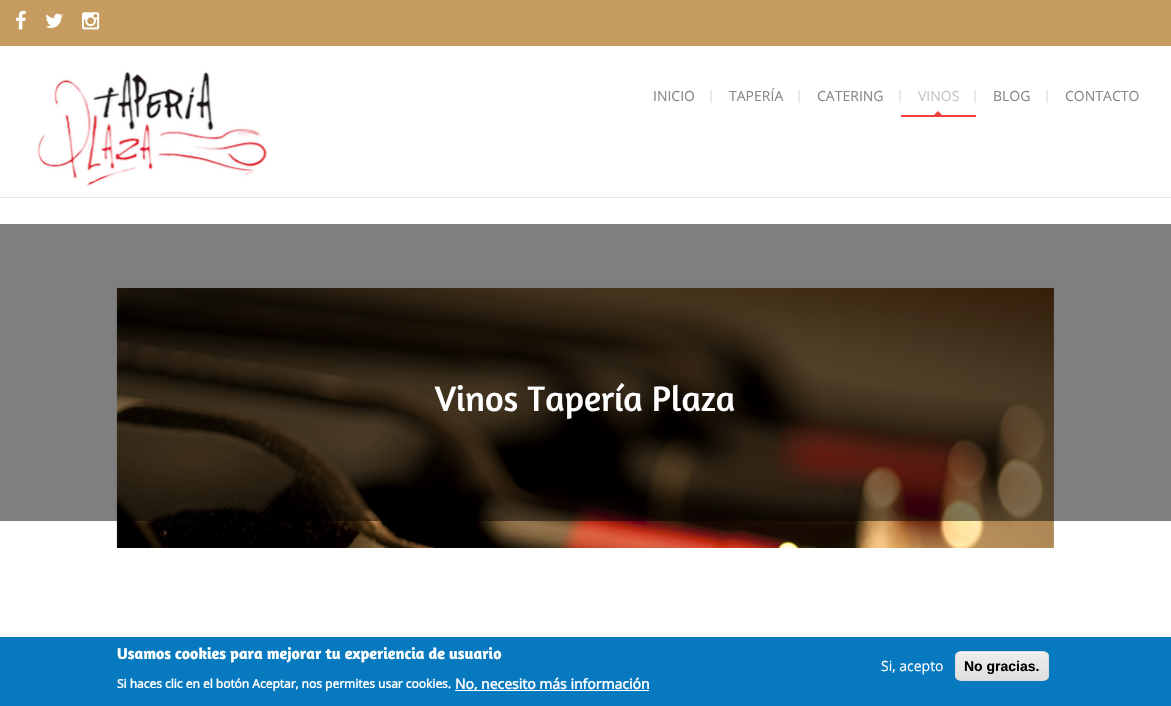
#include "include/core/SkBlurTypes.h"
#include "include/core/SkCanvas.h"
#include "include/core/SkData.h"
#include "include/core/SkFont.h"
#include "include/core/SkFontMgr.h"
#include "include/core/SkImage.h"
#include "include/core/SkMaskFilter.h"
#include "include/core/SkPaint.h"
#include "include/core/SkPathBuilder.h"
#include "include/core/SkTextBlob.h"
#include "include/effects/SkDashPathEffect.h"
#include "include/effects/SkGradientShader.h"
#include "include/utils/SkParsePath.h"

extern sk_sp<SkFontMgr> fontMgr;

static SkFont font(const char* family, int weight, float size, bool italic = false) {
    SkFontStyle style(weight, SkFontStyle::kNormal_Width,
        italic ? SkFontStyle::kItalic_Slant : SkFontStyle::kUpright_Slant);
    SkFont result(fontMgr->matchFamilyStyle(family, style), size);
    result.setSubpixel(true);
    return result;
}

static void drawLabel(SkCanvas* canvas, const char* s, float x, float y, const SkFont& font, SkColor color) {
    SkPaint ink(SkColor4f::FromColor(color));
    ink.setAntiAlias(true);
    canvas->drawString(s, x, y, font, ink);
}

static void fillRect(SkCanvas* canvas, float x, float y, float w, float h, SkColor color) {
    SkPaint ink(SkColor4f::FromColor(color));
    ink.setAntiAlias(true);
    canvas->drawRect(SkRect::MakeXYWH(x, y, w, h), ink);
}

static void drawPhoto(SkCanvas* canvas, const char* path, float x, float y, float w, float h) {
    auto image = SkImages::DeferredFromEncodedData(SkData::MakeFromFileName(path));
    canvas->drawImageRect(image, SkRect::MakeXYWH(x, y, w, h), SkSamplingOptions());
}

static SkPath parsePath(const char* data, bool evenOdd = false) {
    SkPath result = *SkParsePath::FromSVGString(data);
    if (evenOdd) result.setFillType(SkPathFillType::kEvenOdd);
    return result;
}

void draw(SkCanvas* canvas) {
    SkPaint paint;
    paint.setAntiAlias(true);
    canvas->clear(0xFFFFFFFF);
    fillRect(canvas, 0, 0, 1171, 46, 0xFFC79C60);
    drawPhoto(canvas, "assets/img1.png", 16, 10, 10, 20);
    drawPhoto(canvas, "assets/img2.png", 45, 13, 18, 15);
    drawPhoto(canvas, "assets/img3.png", 82, 12, 18, 18);
    fillRect(canvas, 0, 197, 1171, 1, 0xFFE9E9E9);
    drawPhoto(canvas, "assets/img4.png", 37, 71, 231, 116);
    SkFont font1 = font("Open Sans", 400, 14);
    drawLabel(canvas, "INICIO", 653, 101, font1, 0xFF888888);
    fillRect(canvas, 710, 90, 2, 13, 0xFFE9E9E9);
    drawLabel(canvas, "TAPERÍA", 729, 101, font1, 0xFF888888);
    fillRect(canvas, 798, 90, 2, 13, 0xFFE9E9E9);
    drawLabel(canvas, "CATERING", 817, 101, font1, 0xFF888888);
    fillRect(canvas, 899, 90, 2, 13, 0xFFE9E9E9);
    drawLabel(canvas, "VINOS", 918, 101, font1, 0xFFC7C7C7);
    paint.setColor(0xFFF53F3F);
    canvas->drawPath(parsePath("M942 115H934L938 111Z"), paint);
    fillRect(canvas, 901, 115, 75, 2, 0xFFF53F3F);
    fillRect(canvas, 974, 90, 2, 13, 0xFFE9E9E9);
    drawLabel(canvas, "BLOG", 993, 101, font1, 0xFF888888);
    fillRect(canvas, 1046, 90, 2, 13, 0xFFE9E9E9);
    drawLabel(canvas, "CONTACTO", 1065, 101, font1, 0xFF888888);
    drawPhoto(canvas, "assets/img5.png", 116, 287, 938, 261);
    fillRect(canvas, 0, 224, 1171, 297, 0x80000000);
    SkFont font2 = font("Amaranth", 400, 36);
    drawLabel(canvas, "Vinos Tapería Plaza", 435, 411, font2, 0xFFFFFFFF);
    fillRect(canvas, 0, 637, 1171, 69, 0xFF0779BF);
    SkFont font3 = font("Amaranth", 700, 16);
    drawLabel(canvas, "Usamos cookies para mejorar tu experiencia de usuario", 117, 659, font3, 0xFFFFFFFF);
    SkFont font4 = font("Open Sans", 700, 12);
    drawLabel(canvas, "Si haces clic en el botón Aceptar, nos permites usar cookies.", 117, 688, font4, 0xFFFFFFFF);
    fillRect(canvas, 455, 690, 194, 1, 0xFFFFFFFF);
    SkFont font5 = font("Open Sans", 700, 14);
    drawLabel(canvas, "No, necesito más información", 455, 689, font5, 0xFFFFFFFF);
    drawLabel(canvas, "Si, acepto", 881, 671, font1, 0xFFFFFFFF);
    canvas->save();
    canvas->clipPath(parsePath("M961 651H1043C1046.5 651 1049 653.5 1049 657V675C1049 678.5 1046.5 681 1043 681H961C957.5 681 955 678.5 955 675V657C955 653.5 957.5 651 961 651Z"), true);
    {
        const SkColor colors[] = {0xFFEDEDED, 0xFFDFDFDF};
        const float stops[] = {0.05f, 1};
        const SkPoint ends[] = {{1002, 652}, {1002, 680}};
        paint.setShader(SkGradientShader::MakeLinear(ends, colors, stops, 2, SkTileMode::kClamp));
        paint.setAlpha(255);
    }
    canvas->drawRect(SkRect::MakeXYWH(955, 652, 94, 28), paint);
    canvas->restore();
    paint.setShader(nullptr);
    paint.setColor(0xFFFFFFFF);
    canvas->drawPath(parsePath("M961 653H1043C1046 653 1048 655 1048 658C1048 649 1035 652 1029 652H975C969 652 956 649 956 658C956 655 958 653 961 653Z"), paint);
    paint.setStroke(true);
    paint.setStrokeWidth(1);
    paint.setColor(0xFFDCDCDC);
    canvas->drawRoundRect(SkRect::MakeXYWH(955.5f, 651.5f, 93, 29), 5.5f, 5.5f, paint);
    SkFont font6 = font("Liberation Sans", 700, 14);
    drawLabel(canvas, "No gracias.", 964, 671, font6, 0xFF000000);
}
